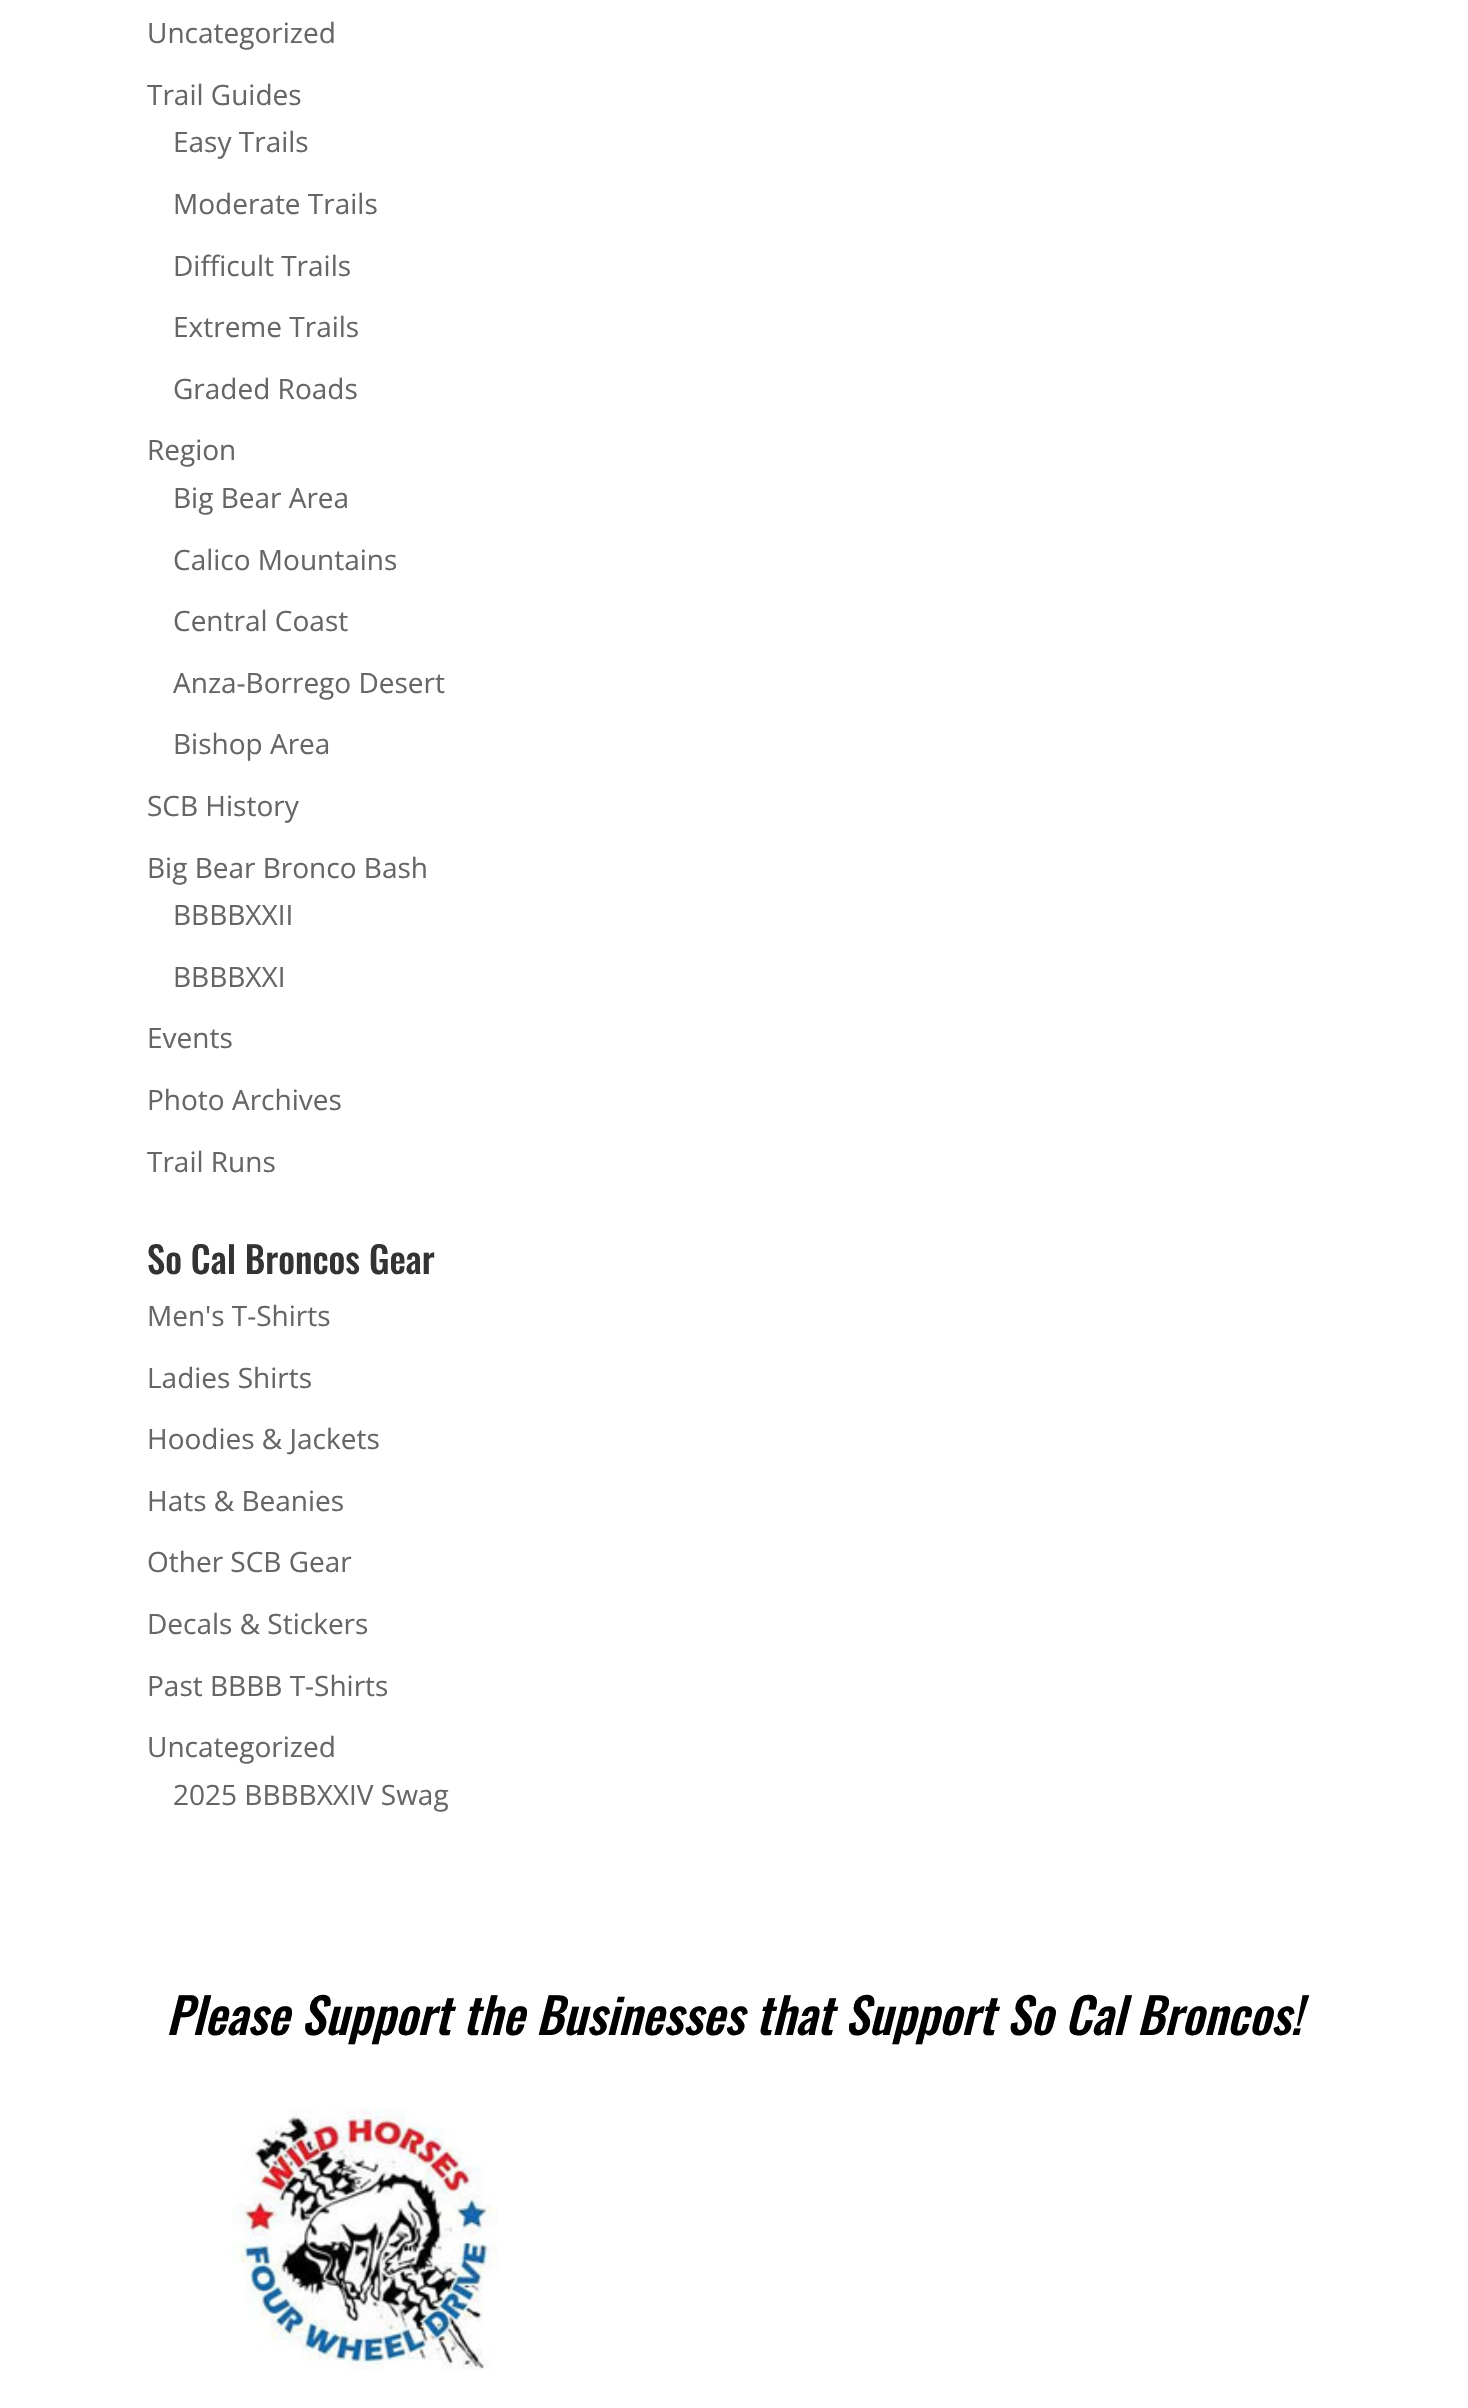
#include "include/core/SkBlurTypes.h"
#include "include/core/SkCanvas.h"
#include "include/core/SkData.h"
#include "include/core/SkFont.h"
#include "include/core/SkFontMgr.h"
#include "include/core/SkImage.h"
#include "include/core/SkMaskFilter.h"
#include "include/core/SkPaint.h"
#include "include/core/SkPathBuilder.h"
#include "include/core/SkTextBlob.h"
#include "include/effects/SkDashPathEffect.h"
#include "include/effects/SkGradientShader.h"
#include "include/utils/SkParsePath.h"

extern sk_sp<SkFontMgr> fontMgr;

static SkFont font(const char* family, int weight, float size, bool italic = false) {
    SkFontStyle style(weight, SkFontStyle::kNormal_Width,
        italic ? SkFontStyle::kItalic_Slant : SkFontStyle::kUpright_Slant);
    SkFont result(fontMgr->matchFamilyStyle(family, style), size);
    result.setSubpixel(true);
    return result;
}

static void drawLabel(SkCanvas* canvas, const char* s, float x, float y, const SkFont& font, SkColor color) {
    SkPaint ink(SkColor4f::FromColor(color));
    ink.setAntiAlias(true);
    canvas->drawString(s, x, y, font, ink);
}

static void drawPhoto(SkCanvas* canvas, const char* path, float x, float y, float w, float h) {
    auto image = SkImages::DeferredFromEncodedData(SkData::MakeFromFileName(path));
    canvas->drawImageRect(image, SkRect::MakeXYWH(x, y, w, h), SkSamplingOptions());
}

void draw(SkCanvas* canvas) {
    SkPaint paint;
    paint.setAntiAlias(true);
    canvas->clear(0xFFFFFFFF);
    SkFont font1 = font("Open Sans", 400, 28);
    drawLabel(canvas, "Uncategorized", 147, 43, font1, 0xFF666666);
    drawLabel(canvas, "Trail Guides", 147, 105, font1, 0xFF666666);
    drawLabel(canvas, "Easy Trails", 173, 152, font1, 0xFF666666);
    drawLabel(canvas, "Moderate Trails", 173, 214, font1, 0xFF666666);
    drawLabel(canvas, "Difficult Trails", 173, 276, font1, 0xFF666666);
    drawLabel(canvas, "Extreme Trails", 173, 337, font1, 0xFF666666);
    drawLabel(canvas, "Graded Roads", 173, 399, font1, 0xFF666666);
    drawLabel(canvas, "Region", 147, 460, font1, 0xFF666666);
    drawLabel(canvas, "Big Bear Area", 173, 508, font1, 0xFF666666);
    drawLabel(canvas, "Calico Mountains", 173, 570, font1, 0xFF666666);
    drawLabel(canvas, "Central Coast", 173, 631, font1, 0xFF666666);
    drawLabel(canvas, "Anza-Borrego Desert", 173, 693, font1, 0xFF666666);
    drawLabel(canvas, "Bishop Area", 173, 754, font1, 0xFF666666);
    drawLabel(canvas, "SCB History", 147, 816, font1, 0xFF666666);
    drawLabel(canvas, "Big Bear Bronco Bash", 147, 878, font1, 0xFF666666);
    drawLabel(canvas, "BBBBXXII", 173, 925, font1, 0xFF666666);
    drawLabel(canvas, "BBBBXXI", 173, 987, font1, 0xFF666666);
    drawLabel(canvas, "Events", 147, 1048, font1, 0xFF666666);
    drawLabel(canvas, "Photo Archives", 147, 1110, font1, 0xFF666666);
    drawLabel(canvas, "Trail Runs", 147, 1172, font1, 0xFF666666);
    SkFont font2 = font("Oswald", 500, 36.75f);
    drawLabel(canvas, "So Cal Broncos Gear", 147, 1274, font2, 0xFF333333);
    drawLabel(canvas, "Men's T-Shirts", 147, 1326, font1, 0xFF666666);
    drawLabel(canvas, "Ladies Shirts", 147, 1388, font1, 0xFF666666);
    drawLabel(canvas, "Hoodies & Jackets", 147, 1449, font1, 0xFF666666);
    drawLabel(canvas, "Hats & Beanies", 147, 1511, font1, 0xFF666666);
    drawLabel(canvas, "Other SCB Gear", 147, 1572, font1, 0xFF666666);
    drawLabel(canvas, "Decals & Stickers", 147, 1634, font1, 0xFF666666);
    drawLabel(canvas, "Past BBBB T-Shirts", 147, 1696, font1, 0xFF666666);
    drawLabel(canvas, "Uncategorized", 147, 1757, font1, 0xFF666666);
    drawLabel(canvas, "2025 BBBBXXIV Swag", 173, 1805, font1, 0xFF666666);
    SkFont font3 = font("Oswald", 500, 49, true);
    drawLabel(canvas, "Please Support the Businesses that Support So Cal Broncos!", 166, 2035, font3, 0xFF000000);
    drawPhoto(canvas, "assets/img1.png", 231, 2108, 267, 263);
}
